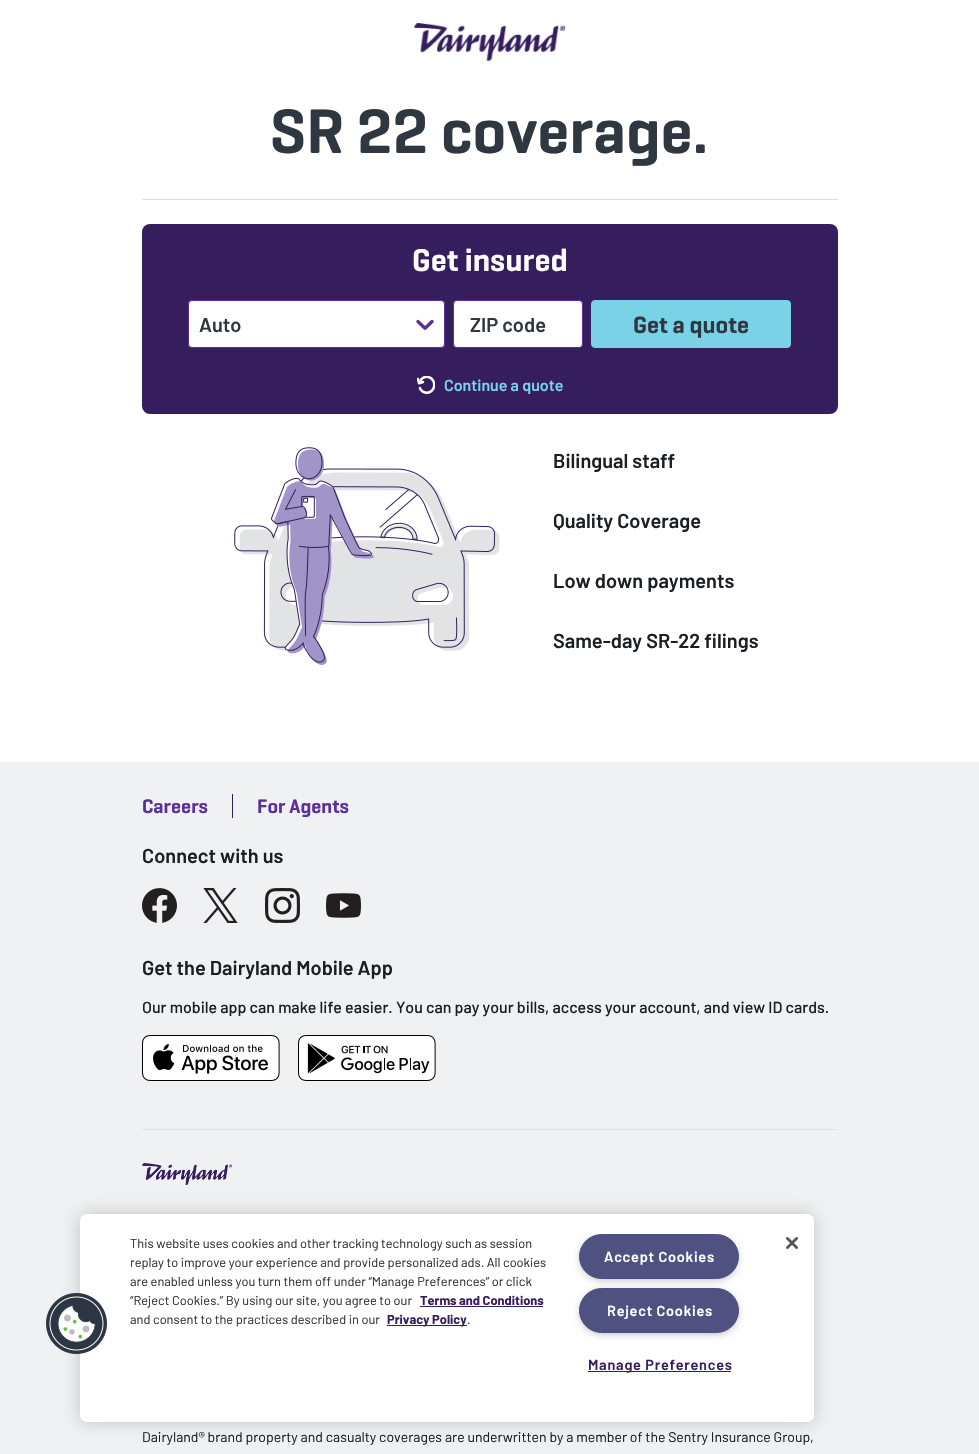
#include "include/core/SkBlurTypes.h"
#include "include/core/SkCanvas.h"
#include "include/core/SkData.h"
#include "include/core/SkFont.h"
#include "include/core/SkFontMgr.h"
#include "include/core/SkImage.h"
#include "include/core/SkMaskFilter.h"
#include "include/core/SkPaint.h"
#include "include/core/SkPathBuilder.h"
#include "include/core/SkTextBlob.h"
#include "include/effects/SkDashPathEffect.h"
#include "include/effects/SkGradientShader.h"
#include "include/utils/SkParsePath.h"

extern sk_sp<SkFontMgr> fontMgr;

static SkFont font(const char* family, int weight, float size, bool italic = false) {
    SkFontStyle style(weight, SkFontStyle::kNormal_Width,
        italic ? SkFontStyle::kItalic_Slant : SkFontStyle::kUpright_Slant);
    SkFont result(fontMgr->matchFamilyStyle(family, style), size);
    result.setSubpixel(true);
    return result;
}

static void drawLabel(SkCanvas* canvas, const char* s, float x, float y, const SkFont& font, SkColor color) {
    SkPaint ink(SkColor4f::FromColor(color));
    ink.setAntiAlias(true);
    canvas->drawString(s, x, y, font, ink);
}

static void drawTracked(SkCanvas* canvas, const char* s, float x, float y, const SkFont& font, const SkPaint& ink, float letter, float word) {
    std::vector<SkGlyphID> glyphs(font.countText(s, strlen(s), SkTextEncoding::kUTF8));
    std::vector<float> xs(glyphs.size());
    font.textToGlyphs(s, strlen(s), SkTextEncoding::kUTF8, glyphs);
    font.getXPos(glyphs, xs, x);
    float extra = 0;
    for (size_t i = 0; i < glyphs.size(); i++) {
        xs[i] += extra;
        extra += letter + word * (glyphs[i] == font.unicharToGlyph(' '));
    }
    canvas->drawTextBlob(SkTextBlob::MakeFromPosHGlyphs(glyphs, xs, y, font), 0, 0, ink);
}

static void fillRect(SkCanvas* canvas, float x, float y, float w, float h, SkColor color) {
    SkPaint ink(SkColor4f::FromColor(color));
    ink.setAntiAlias(true);
    canvas->drawRect(SkRect::MakeXYWH(x, y, w, h), ink);
}

static void fillRRect(SkCanvas* canvas, float x, float y, float w, float h, float radius, SkColor color) {
    SkPaint ink(SkColor4f::FromColor(color));
    ink.setAntiAlias(true);
    canvas->drawRoundRect(SkRect::MakeXYWH(x, y, w, h), radius, radius, ink);
}

static void drawPhoto(SkCanvas* canvas, const char* path, float x, float y, float w, float h) {
    auto image = SkImages::DeferredFromEncodedData(SkData::MakeFromFileName(path));
    canvas->drawImageRect(image, SkRect::MakeXYWH(x, y, w, h), SkSamplingOptions());
}

void draw(SkCanvas* canvas) {
    SkPaint paint;
    paint.setAntiAlias(true);
    canvas->clear(0xFFFFFFFF);
    drawPhoto(canvas, "assets/img1.png", 413, 23, 153, 38);
    SkFont font1 = font("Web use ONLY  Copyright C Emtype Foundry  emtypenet", 600, 64);
    drawLabel(canvas, "SR 22 coverage.", 270, 153, font1, 0xFF2F3840);
    fillRect(canvas, 142, 199, 696, 1, 0xFFDED9EB);
    fillRRect(canvas, 142, 224, 696, 190, 8, 0xFF361D5D);
    SkFont font2 = font("Web use ONLY  Copyright C Emtype Foundry  emtypenet", 600, 32);
    drawLabel(canvas, "Get insured", 412, 271, font2, 0xFFFFFFFF);
    paint.setColor(0xFFFFFFFF);
    canvas->drawRoundRect(SkRect::MakeXYWH(188.5f, 300.5f, 256, 47), 3.5f, 3.5f, paint);
    paint.setStroke(true);
    paint.setStrokeWidth(1);
    paint.setColor(0xFF5A319B);
    canvas->drawRoundRect(SkRect::MakeXYWH(188.5f, 300.5f, 256, 47), 3.5f, 3.5f, paint);
    SkFont font3 = font("Barlow", 600, 20);
    drawLabel(canvas, "Auto", 199, 332, font3, 0xFF2F3840);
    drawPhoto(canvas, "assets/img2.png", 416, 319, 18, 11);
    paint.setStroke(false);
    paint.setColor(0xFFFFFFFF);
    canvas->drawRoundRect(SkRect::MakeXYWH(453.5f, 300.5f, 129, 47), 3.5f, 3.5f, paint);
    paint.setStroke(true);
    paint.setColor(0xFF5A319B);
    canvas->drawRoundRect(SkRect::MakeXYWH(453.5f, 300.5f, 129, 47), 3.5f, 3.5f, paint);
    drawLabel(canvas, "ZIP code", 470, 332, font3, 0xFF2F3840);
    paint.setStroke(false);
    paint.setColor(0xFF79D2E5);
    canvas->drawRoundRect(SkRect::MakeXYWH(591.5f, 300.5f, 199, 47), 3.5f, 3.5f, paint);
    paint.setStroke(true);
    canvas->drawRoundRect(SkRect::MakeXYWH(591.5f, 300.5f, 199, 47), 3.5f, 3.5f, paint);
    SkFont font4 = font("Web use ONLY  Copyright C Emtype Foundry  emtypenet", 600, 24);
    drawLabel(canvas, "Get a quote", 633, 333, font4, 0xFF2F3840);
    drawPhoto(canvas, "assets/img3.png", 417, 376, 18, 18);
    SkFont font5 = font("Barlow", 600, 16);
    drawLabel(canvas, "Continue a quote", 444, 391, font5, 0xFF79D2E5);
    drawPhoto(canvas, "assets/img4.png", 234, 447, 266, 218);
    drawLabel(canvas, "Bilingual staff", 553, 468, font3, 0xFF191F25);
    drawLabel(canvas, "Quality Coverage", 553, 528, font3, 0xFF191F25);
    drawLabel(canvas, "Low down payments", 553, 588, font3, 0xFF191F25);
    drawLabel(canvas, "Same-day SR-22 filings", 553, 648, font3, 0xFF191F25);
    fillRect(canvas, 0, 762, 979, 692, 0xFFF0F1F2);
    SkFont font6 = font("Web use ONLY  Copyright C Emtype Foundry  emtypenet", 600, 20);
    drawLabel(canvas, "Careers", 142, 813, font6, 0xFF5A319B);
    fillRect(canvas, 232, 794, 1, 24, 0xFF361D5D);
    drawLabel(canvas, "For Agents", 257, 813, font6, 0xFF5A319B);
    drawLabel(canvas, "Connect with us", 142, 863, font3, 0xFF191F25);
    drawPhoto(canvas, "assets/img5.png", 142, 888, 35, 35);
    drawPhoto(canvas, "assets/img6.png", 203, 888, 35, 35);
    drawPhoto(canvas, "assets/img7.png", 265, 888, 35, 35);
    drawPhoto(canvas, "assets/img8.png", 326, 893, 35, 25);
    drawLabel(canvas, "Get the Dairyland Mobile App", 142, 975, font3, 0xFF191F25);
    SkFont font7 = font("Barlow", 500, 16);
    drawLabel(canvas, "Our mobile app can make life easier. You can pay your bills, access your account, and view ID cards.", 142, 1013, font7, 0xFF191F25);
    drawPhoto(canvas, "assets/img9.png", 142, 1035, 138, 46);
    drawPhoto(canvas, "assets/img10.png", 298, 1035, 138, 46);
    fillRect(canvas, 142, 1129, 696, 1, 0xFFE1E3E4);
    drawPhoto(canvas, "assets/img11.png", 142, 1163, 90, 22);
    SkFont font8 = font("Barlow", 400, 14);
    drawLabel(canvas, "Dairyland® brand property and casualty coverages are underwritten by a member of the Sentry Insurance Group,", 142, 1442, font8, 0xFF191F25);
    paint.setStroke(false);
    paint.setColor(0x33000000);
    paint.setMaskFilter(SkMaskFilter::MakeBlur(kNormal_SkBlurStyle, 9));
    canvas->drawRoundRect(SkRect::MakeXYWH(80, 1214, 734, 208), 7, 7, paint);
    paint.setMaskFilter(nullptr);
    fillRRect(canvas, 80, 1214, 734, 208, 7, 0xFFFFFFFF);
    drawPhoto(canvas, "assets/img12.png", 46, 1293, 61, 61);
    SkFont font9 = font("Barlow", 400, 12.8f);
    drawLabel(canvas, "This website uses cookies and other tracking technology such as session", 130, 1248, font9, 0xFF333333);
    drawLabel(canvas, "replay to improve your experience and provide personalized ads. All cookies", 130, 1267, font9, 0xFF333333);
    drawLabel(canvas, "are enabled unless you turn them off under “Manage Preferences” or click", 130, 1286, font9, 0xFF333333);
    drawLabel(canvas, "“Reject Cookies.” By using our site, you agree to our", 130, 1305, font9, 0xFF333333);
    SkFont font10 = font("Barlow", 700, 12.8f);
    drawLabel(canvas, "Terms and Conditions", 420, 1305, font10, 0xFF361D5D);
    fillRect(canvas, 420, 1306, 123, 1, 0xFF361D5D);
    drawLabel(canvas, "and consent to the practices described in our", 130, 1324, font9, 0xFF333333);
    fillRect(canvas, 387, 1325, 80, 1, 0xFF361D5D);
    drawLabel(canvas, "Privacy Policy", 387, 1324, font10, 0xFF361D5D);
    drawLabel(canvas, ".", 467, 1324, font9, 0xFF333333);
    canvas->save();
    canvas->clipRect(SkRect::MakeXYWH(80, 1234, 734, 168));
    paint.setColor(0xFF999999);
    paint.setMaskFilter(SkMaskFilter::MakeBlur(kNormal_SkBlurStyle, 5));
    canvas->drawRoundRect(SkRect::MakeXYWH(582, 1239, 154, 39), 19.5f, 19.5f, paint);
    paint.setMaskFilter(nullptr);
    canvas->restore();
    paint.setColor(0xFF4F5181);
    canvas->drawRoundRect(SkRect::MakeXYWH(579.5f, 1234.5f, 159, 44), 22, 22, paint);
    paint.setStroke(true);
    canvas->drawRoundRect(SkRect::MakeXYWH(579.5f, 1234.5f, 159, 44), 22, 22, paint);
    SkFont font11 = font("Barlow", 600, 14.5f);
    paint.setStroke(false);
    paint.setColor(0xFFFFFFFF);
    drawTracked(canvas, "Accept Cookies", 604, 1262, font11, paint, 0.75f, 0);
    paint.setColor(0xFF999999);
    paint.setMaskFilter(SkMaskFilter::MakeBlur(kNormal_SkBlurStyle, 5));
    canvas->drawRoundRect(SkRect::MakeXYWH(582, 1293, 154, 39), 19.5f, 19.5f, paint);
    paint.setMaskFilter(nullptr);
    paint.setColor(0xFF4F5181);
    canvas->drawRoundRect(SkRect::MakeXYWH(579.5f, 1288.5f, 159, 44), 22, 22, paint);
    paint.setStroke(true);
    canvas->drawRoundRect(SkRect::MakeXYWH(579.5f, 1288.5f, 159, 44), 22, 22, paint);
    paint.setStroke(false);
    paint.setColor(0xFFFFFFFF);
    drawTracked(canvas, "Reject Cookies", 607, 1316, font11, paint, 0.75f, 0);
    fillRect(canvas, 588, 1371, 143, 1, 0xFF361D5D);
    paint.setColor(0xFF361D5D);
    drawTracked(canvas, "Manage Preferences", 588, 1370, font11, paint, 0.75f, 0);
    drawPhoto(canvas, "assets/img13.png", 786, 1237, 12, 12);
}
